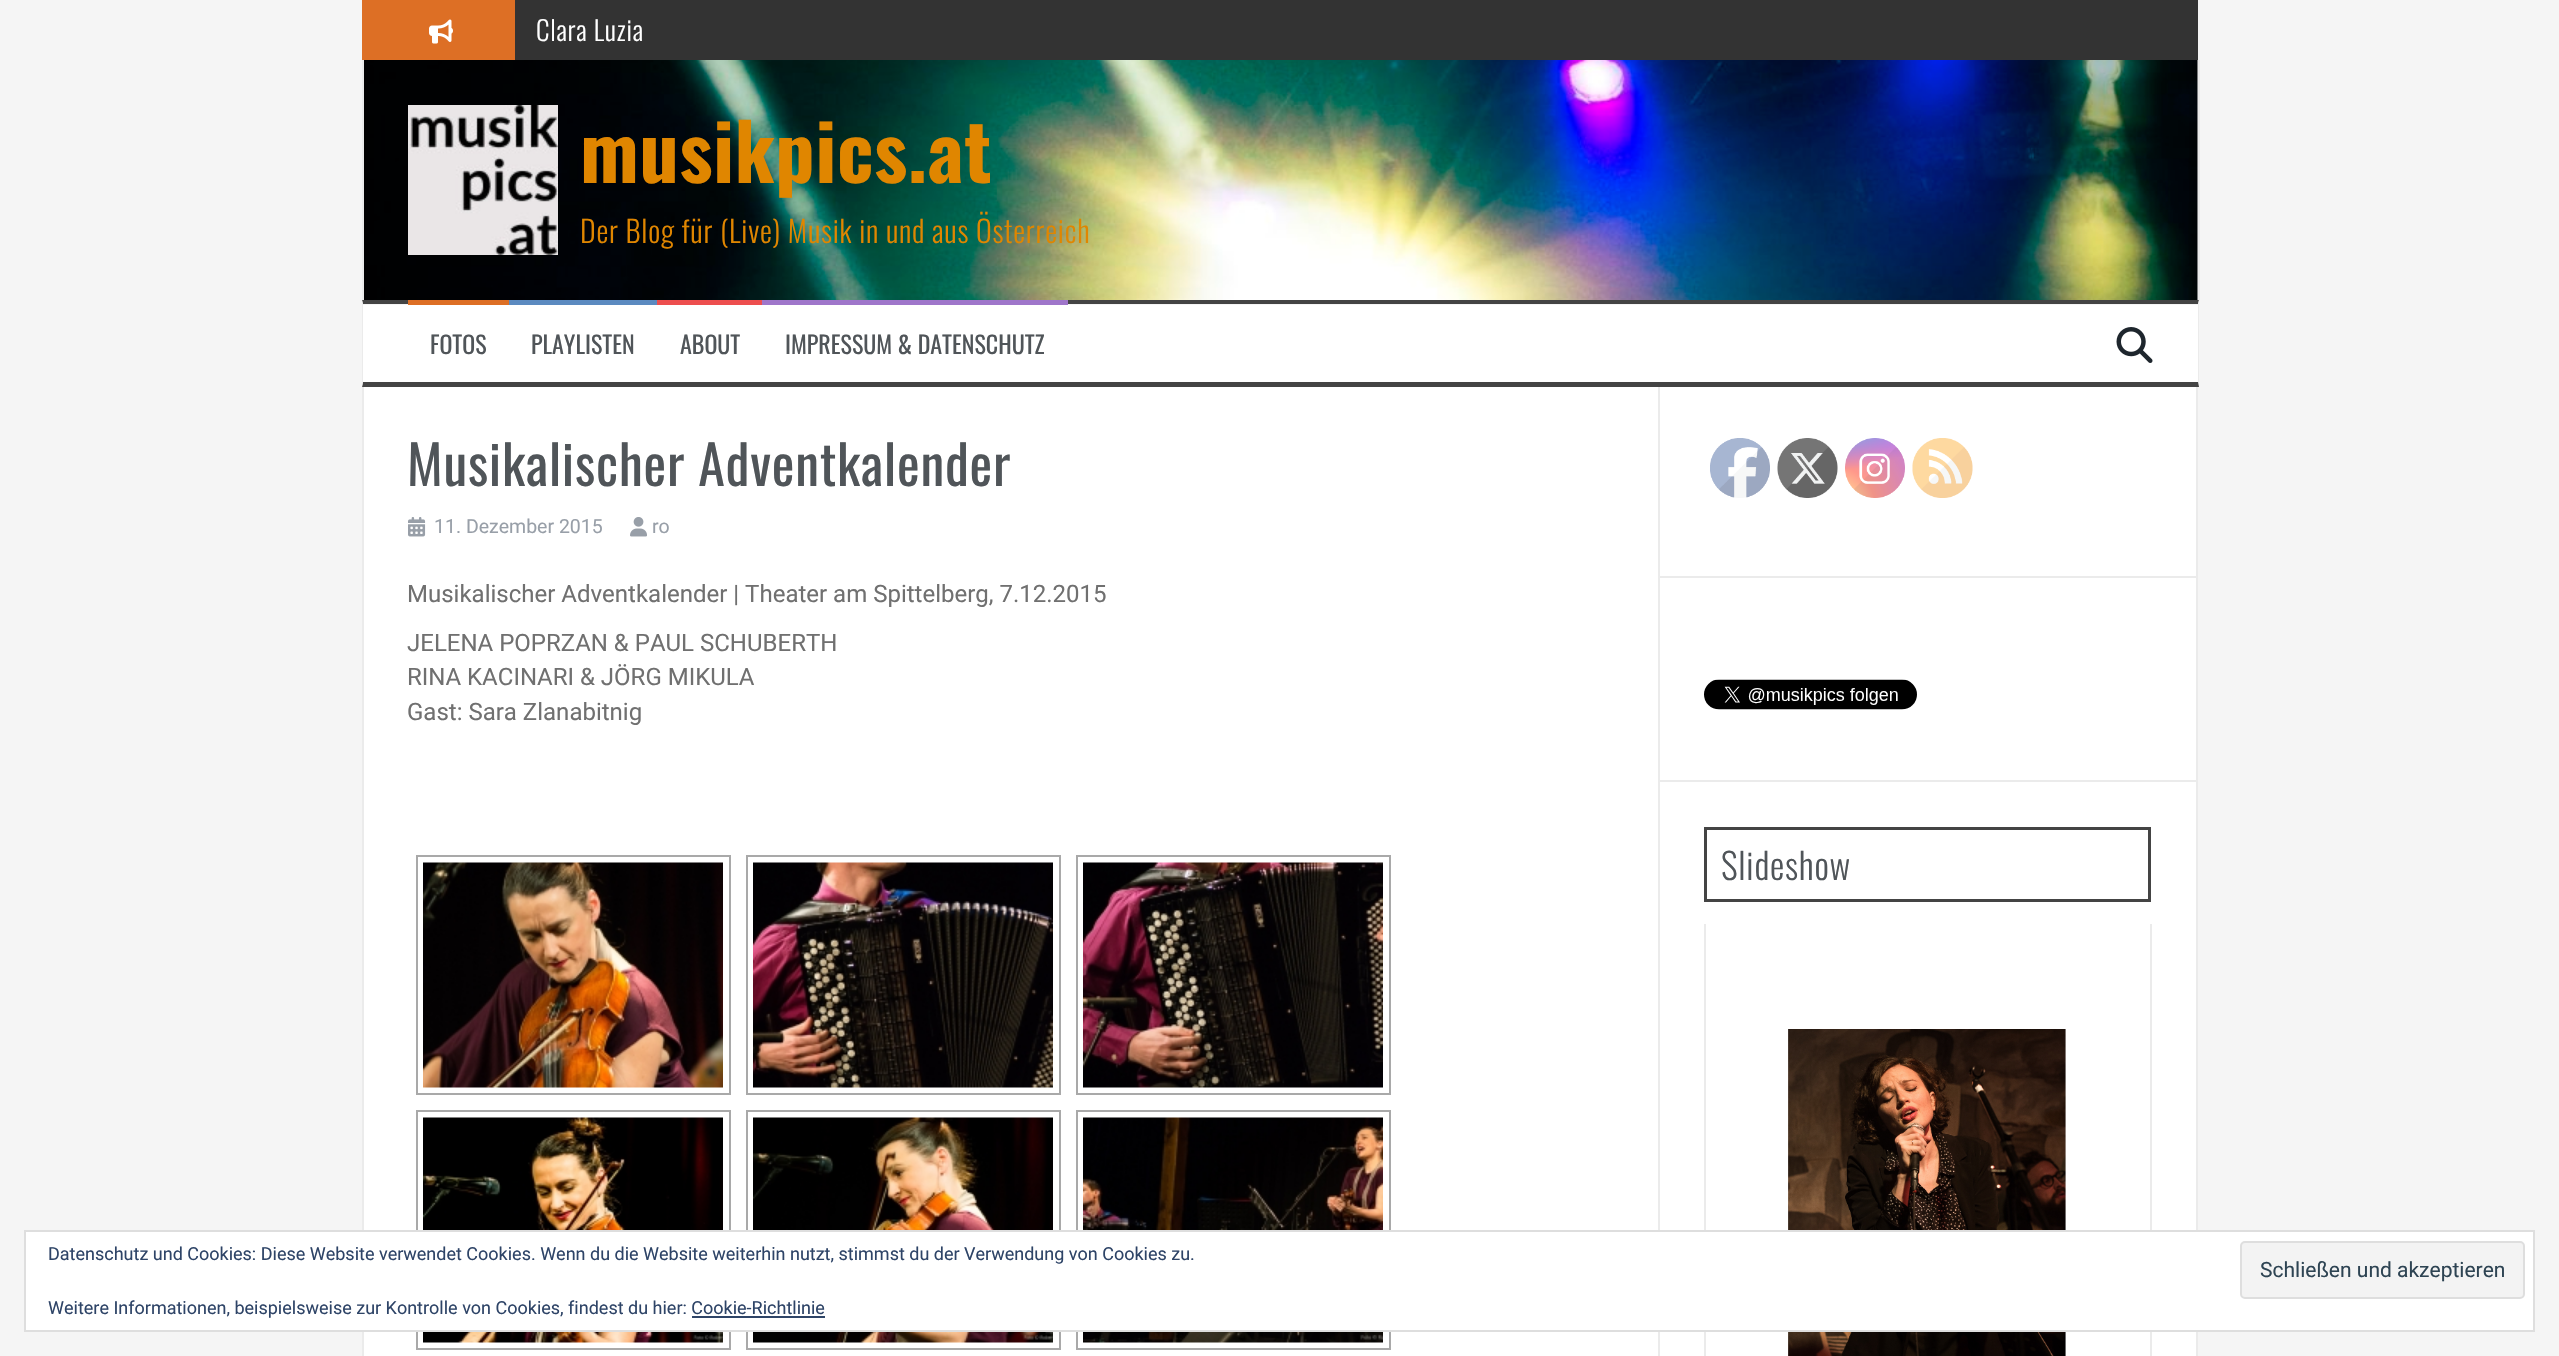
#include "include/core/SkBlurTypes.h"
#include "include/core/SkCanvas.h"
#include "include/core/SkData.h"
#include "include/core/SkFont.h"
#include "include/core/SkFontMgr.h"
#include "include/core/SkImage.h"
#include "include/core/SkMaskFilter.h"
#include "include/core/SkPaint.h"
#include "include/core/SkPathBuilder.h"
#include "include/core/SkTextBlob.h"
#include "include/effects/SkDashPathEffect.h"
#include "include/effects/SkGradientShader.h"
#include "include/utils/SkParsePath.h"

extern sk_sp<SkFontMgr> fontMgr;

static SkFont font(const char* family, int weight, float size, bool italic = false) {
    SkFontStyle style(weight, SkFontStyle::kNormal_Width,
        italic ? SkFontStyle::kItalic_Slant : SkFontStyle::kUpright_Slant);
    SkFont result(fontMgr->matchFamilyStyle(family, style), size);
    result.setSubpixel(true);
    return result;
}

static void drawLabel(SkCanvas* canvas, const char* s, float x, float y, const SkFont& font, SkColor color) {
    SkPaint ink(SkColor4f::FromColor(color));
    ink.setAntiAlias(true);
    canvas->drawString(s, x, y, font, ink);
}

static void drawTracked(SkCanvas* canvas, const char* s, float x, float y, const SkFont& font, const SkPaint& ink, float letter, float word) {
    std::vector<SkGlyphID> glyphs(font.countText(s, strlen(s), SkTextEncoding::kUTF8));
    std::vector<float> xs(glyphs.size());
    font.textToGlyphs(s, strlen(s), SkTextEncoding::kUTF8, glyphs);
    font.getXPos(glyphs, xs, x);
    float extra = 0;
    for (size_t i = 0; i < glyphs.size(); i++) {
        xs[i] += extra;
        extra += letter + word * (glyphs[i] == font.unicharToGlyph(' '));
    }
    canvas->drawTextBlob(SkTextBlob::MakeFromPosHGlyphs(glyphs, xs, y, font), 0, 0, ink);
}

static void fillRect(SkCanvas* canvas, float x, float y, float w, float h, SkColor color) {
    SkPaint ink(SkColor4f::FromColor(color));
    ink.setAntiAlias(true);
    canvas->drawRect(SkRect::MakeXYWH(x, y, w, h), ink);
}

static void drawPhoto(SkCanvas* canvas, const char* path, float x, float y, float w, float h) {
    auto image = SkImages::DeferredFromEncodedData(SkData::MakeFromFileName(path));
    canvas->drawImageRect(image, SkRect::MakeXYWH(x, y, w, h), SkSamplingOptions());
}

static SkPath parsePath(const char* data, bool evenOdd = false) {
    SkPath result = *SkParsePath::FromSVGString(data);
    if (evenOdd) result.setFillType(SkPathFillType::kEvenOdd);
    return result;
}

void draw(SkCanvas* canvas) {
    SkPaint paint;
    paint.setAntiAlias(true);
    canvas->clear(0xFFF5F5F5);
    fillRect(canvas, 362, 0, 153, 60, 0xFFDD6F25);
    drawPhoto(canvas, "assets/img1.png", 429, 19, 24, 25);
    fillRect(canvas, 515, 0, 1683, 60, 0xFF333333);
    SkFont font1 = font("Oswald", 300, 27);
    paint.setColor(0xFFFFFFFF);
    drawTracked(canvas, "Clara Luzia", 536, 41, font1, paint, 0.75f, 0);
    drawPhoto(canvas, "assets/img2.png", 364, 60, 1834, 240);
    fillRect(canvas, 2198, 60, 2, 240, 0xFFEBEBEB);
    fillRect(canvas, 362, 60, 2, 240, 0xFFEBEBEB);
    drawPhoto(canvas, "assets/img3.png", 408, 105, 150, 150);
    SkFont font2 = font("Oswald", 700, 78);
    paint.setColor(0xFFE08600);
    drawTracked(canvas, "musikpics.at", 580, 183, font2, paint, 0.75f, 0);
    SkFont font3 = font("Oswald", 300, 30);
    drawTracked(canvas, "Der Blog für (Live) Musik in und aus Österreich", 580, 243, font3, paint, 0.75f, 0);
    fillRect(canvas, 363, 305, 1835, 77, 0xFFFFFFFF);
    paint.setColor(0xFF444444);
    canvas->drawPath(parsePath("M362 300H2199L2198 304H363Z"), paint);
    paint.setColor(0xFFEBEBEB);
    canvas->drawPath(parsePath("M2199 300V387L2198 382V304Z"), paint);
    paint.setColor(0xFF444444);
    canvas->drawPath(parsePath("M2199 387H362L363 382H2198Z"), paint);
    paint.setColor(0xFFEBEBEB);
    canvas->drawPath(parsePath("M362 387V300L363 304V382Z"), paint);
    fillRect(canvas, 408, 300, 101, 5, 0xFFDD6F25);
    SkFont font4 = font("Oswald", 400, 24);
    drawLabel(canvas, "FOTOS", 430, 354, font4, 0xFF505559);
    fillRect(canvas, 509, 300, 148, 5, 0xFF5B8AC0);
    drawLabel(canvas, "PLAYLISTEN", 531, 354, font4, 0xFF505559);
    fillRect(canvas, 657, 300, 105, 5, 0xFFED4E4E);
    drawLabel(canvas, "ABOUT", 680, 354, font4, 0xFF505559);
    fillRect(canvas, 762, 300, 306, 5, 0xFF9F76CA);
    drawLabel(canvas, "IMPRESSUM & DATENSCHUTZ", 785, 354, font4, 0xFF505559);
    drawPhoto(canvas, "assets/img4.png", 2116, 327, 37, 36);
    fillRect(canvas, 364, 387, 1294, 969, 0xFFFFFFFF);
    fillRect(canvas, 362, 387, 2, 969, 0xFFEBEBEB);
    SkFont font5 = font("Oswald", 400, 54);
    paint.setColor(0xFF505559);
    drawTracked(canvas, "Musikalischer Adventkalender", 407, 486, font5, paint, 0.75f, 0);
    drawPhoto(canvas, "assets/img5.png", 408, 517, 18, 20);
    SkFont font6 = font("Roboto", 400, 19.5f);
    drawLabel(canvas, "11. Dezember 2015", 434, 533, font6, 0xFF989FA8);
    drawPhoto(canvas, "assets/img6.png", 630, 517, 17, 20);
    drawLabel(canvas, "ro", 652, 533, font6, 0xFF989FA8);
    SkFont font7 = font("Roboto", 400, 24);
    drawLabel(canvas, "Musikalischer Adventkalender | Theater am Spittelberg, 7.12.2015", 407, 602, font7, 0xFF707070);
    drawLabel(canvas, "JELENA POPRZAN & PAUL SCHUBERTH", 407, 651, font7, 0xFF707070);
    drawLabel(canvas, "RINA KACINARI & JÖRG MIKULA", 407, 685, font7, 0xFF707070);
    drawLabel(canvas, "Gast: Sara Zlanabitnig", 407, 720, font7, 0xFF707070);
    paint.setStroke(true);
    paint.setStrokeWidth(2);
    paint.setColor(0xFFA9A9A9);
    canvas->drawRect(SkRect::MakeXYWH(417, 856, 313, 238), paint);
    drawPhoto(canvas, "assets/img7.png", 423, 862, 300, 226);
    canvas->drawRect(SkRect::MakeXYWH(747, 856, 313, 238), paint);
    drawPhoto(canvas, "assets/img8.png", 753, 862, 300, 226);
    canvas->drawRect(SkRect::MakeXYWH(1077, 856, 313, 238), paint);
    drawPhoto(canvas, "assets/img9.png", 1083, 862, 300, 226);
    canvas->drawRect(SkRect::MakeXYWH(417, 1111, 313, 238), paint);
    drawPhoto(canvas, "assets/img10.png", 423, 1117, 300, 226);
    canvas->drawRect(SkRect::MakeXYWH(747, 1111, 313, 238), paint);
    drawPhoto(canvas, "assets/img11.png", 753, 1117, 300, 226);
    canvas->drawRect(SkRect::MakeXYWH(1077, 1111, 313, 238), paint);
    drawPhoto(canvas, "assets/img12.png", 1083, 1117, 300, 226);
    fillRect(canvas, 1660, 387, 536, 189, 0xFFFFFFFF);
    fillRect(canvas, 2196, 387, 2, 969, 0xFFEBEBEB);
    fillRect(canvas, 1658, 576, 540, 2, 0xFFEBEBEB);
    fillRect(canvas, 1658, 387, 2, 191, 0xFFEBEBEB);
    drawPhoto(canvas, "assets/img13.png", 1710, 438, 60, 60);
    drawPhoto(canvas, "assets/img14.png", 1777, 438, 61, 60);
    drawPhoto(canvas, "assets/img15.png", 1845, 438, 60, 60);
    drawPhoto(canvas, "assets/img16.png", 1912, 438, 61, 60);
    fillRect(canvas, 1660, 578, 536, 202, 0xFFFFFFFF);
    fillRect(canvas, 1658, 780, 540, 2, 0xFFEBEBEB);
    fillRect(canvas, 1658, 578, 2, 778, 0xFFEBEBEB);
    drawPhoto(canvas, "assets/img17.png", 1704, 679, 213, 31);
    fillRect(canvas, 1660, 782, 536, 574, 0xFFFFFFFF);
    paint.setStrokeWidth(3);
    paint.setColor(0xFF444444);
    canvas->drawRect(SkRect::MakeXYWH(1705.5f, 828.5f, 444, 72), paint);
    SkFont font8 = font("Oswald", 300, 36);
    paint.setStroke(false);
    paint.setColor(0xFF505559);
    drawTracked(canvas, "Slideshow", 1721, 880, font8, paint, 0.75f, 0);
    fillRect(canvas, 2150, 924, 2, 432, 0xFFEBEBEB);
    fillRect(canvas, 1704, 924, 2, 432, 0xFFEBEBEB);
    drawPhoto(canvas, "assets/img18.png", 1788, 1029, 278, 327);
    paint.setColor(0xFFFFFFFF);
    canvas->drawRect(SkRect::MakeXYWH(25, 1231, 2509, 100), paint);
    paint.setStroke(true);
    paint.setStrokeWidth(2);
    paint.setColor(0xFFDEDEDE);
    canvas->drawRect(SkRect::MakeXYWH(25, 1231, 2509, 100), paint);
    SkFont font9 = font("Roboto", 400, 18);
    drawLabel(canvas, "Datenschutz und Cookies: Diese Website verwendet Cookies. Wenn du die Website weiterhin nutzt, stimmst du der Verwendung von Cookies zu.", 48, 1260, font9, 0xFF2E4467);
    paint.setStroke(false);
    paint.setColor(0xFFF3F3F3);
    canvas->drawRoundRect(SkRect::MakeXYWH(2241, 1242, 283, 56), 4, 4, paint);
    paint.setStroke(true);
    paint.setColor(0xFFDEDEDE);
    canvas->drawRoundRect(SkRect::MakeXYWH(2241, 1242, 283, 56), 4, 4, paint);
    SkFont font10 = font("Roboto", 400, 21);
    drawLabel(canvas, "Schließen und akzeptieren", 2260, 1277, font10, 0xFF2E4453);
    drawLabel(canvas, "Weitere Informationen, beispielsweise zur Kontrolle von Cookies, findest du hier: Cookie-Richtlinie", 48, 1314, font9, 0xFF2E4467);
    fillRect(canvas, 692, 1316, 133, 2, 0xFF2E4467);
}
